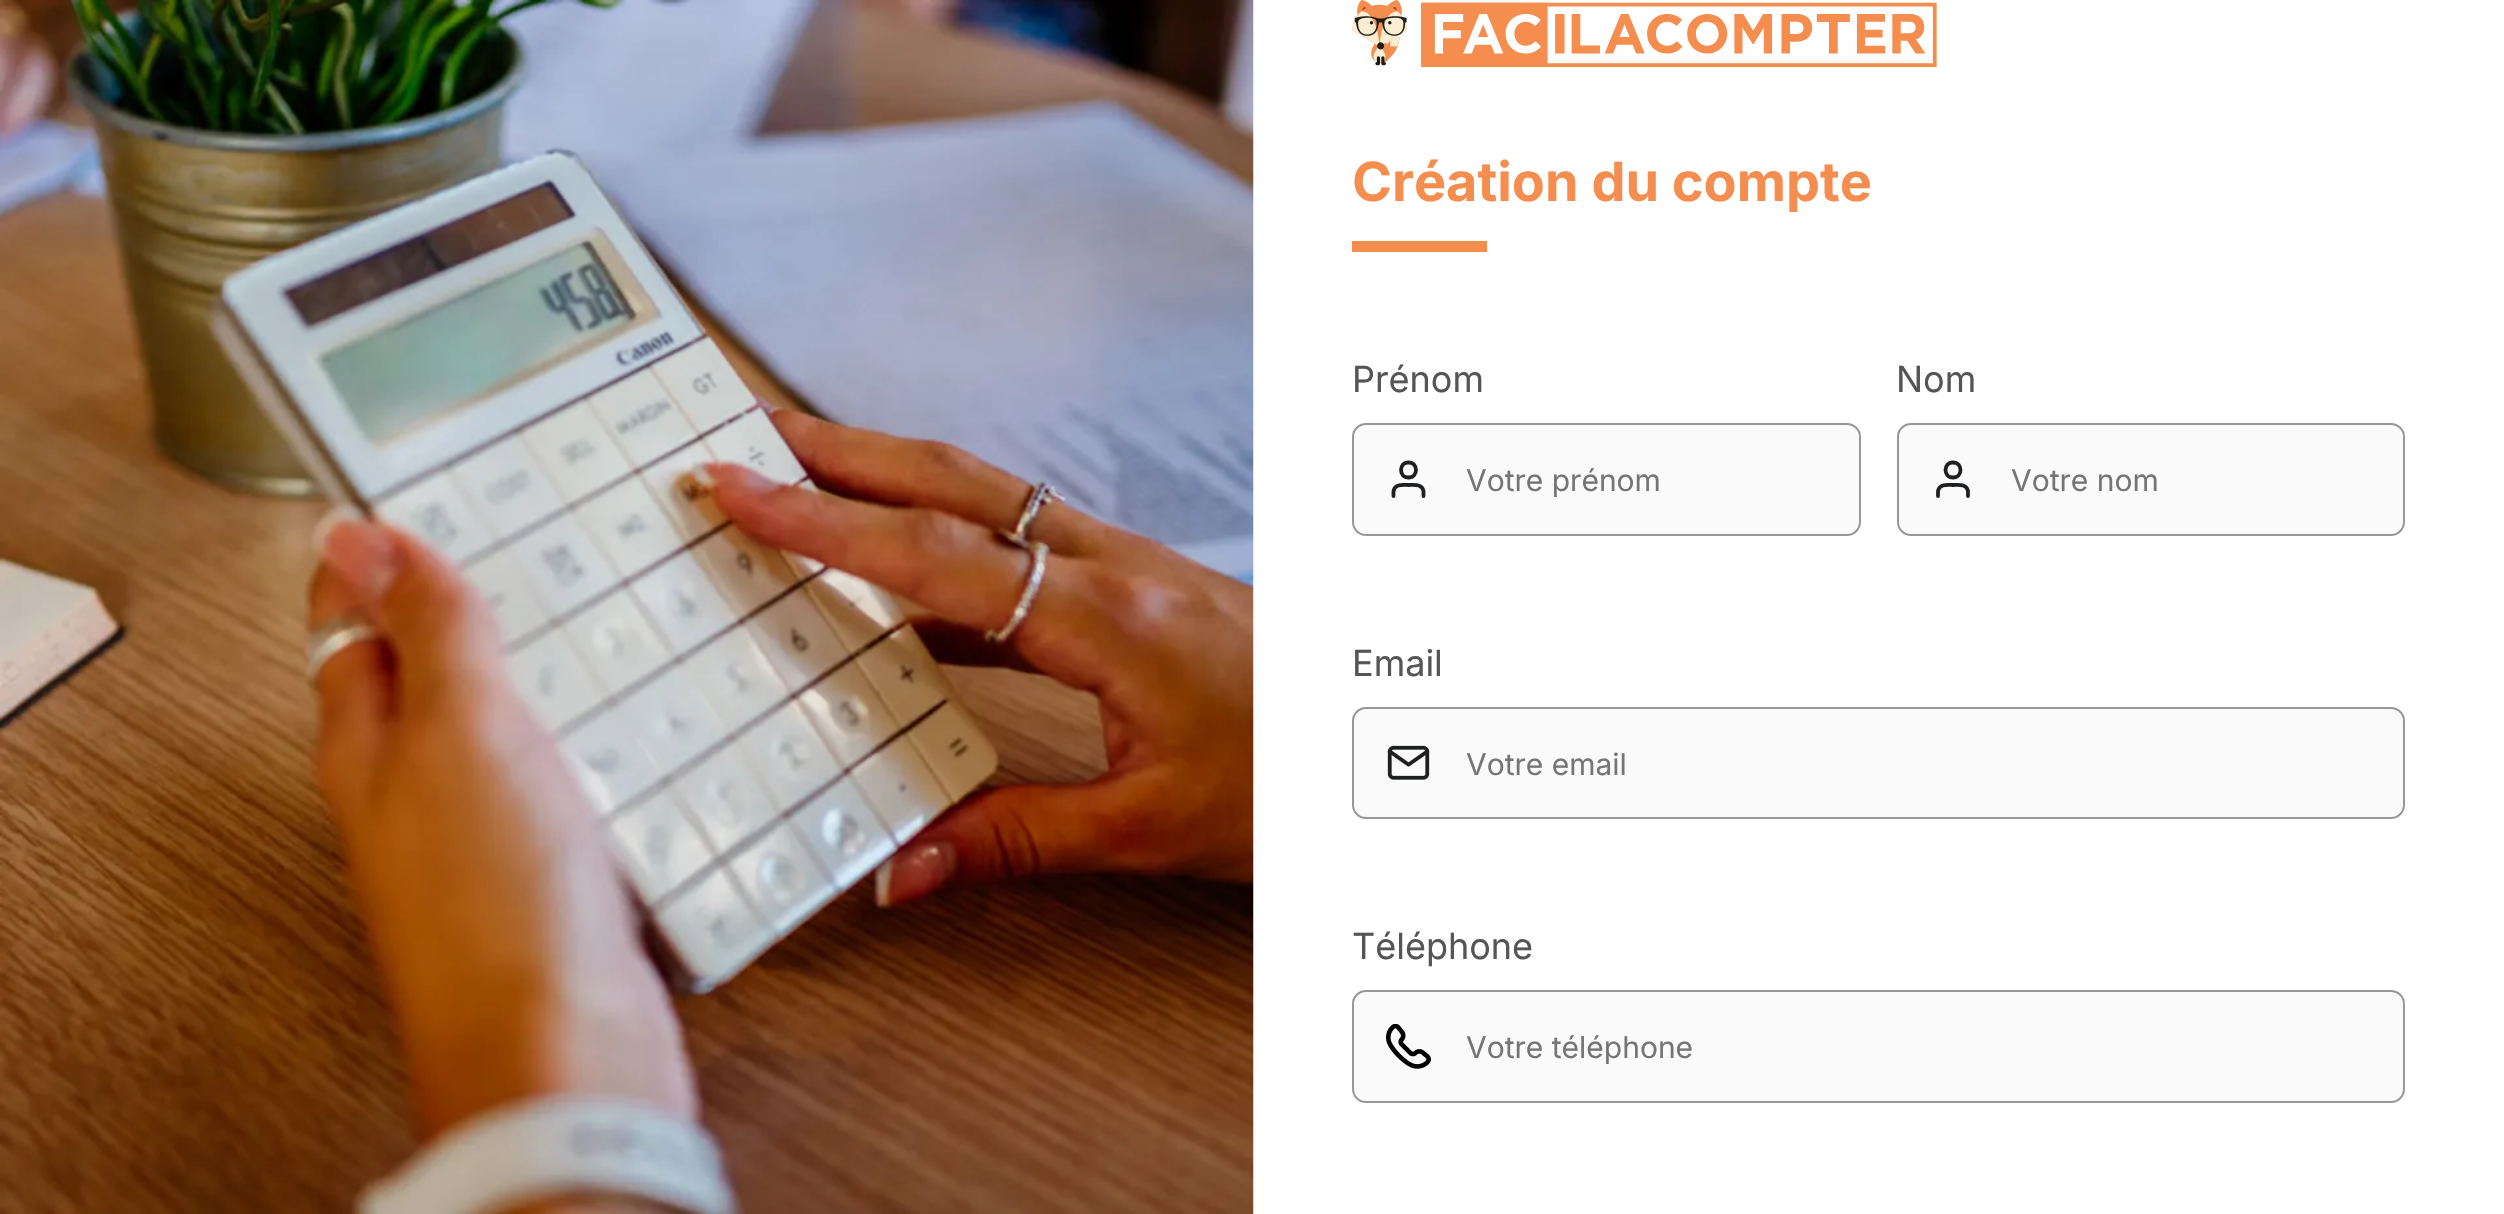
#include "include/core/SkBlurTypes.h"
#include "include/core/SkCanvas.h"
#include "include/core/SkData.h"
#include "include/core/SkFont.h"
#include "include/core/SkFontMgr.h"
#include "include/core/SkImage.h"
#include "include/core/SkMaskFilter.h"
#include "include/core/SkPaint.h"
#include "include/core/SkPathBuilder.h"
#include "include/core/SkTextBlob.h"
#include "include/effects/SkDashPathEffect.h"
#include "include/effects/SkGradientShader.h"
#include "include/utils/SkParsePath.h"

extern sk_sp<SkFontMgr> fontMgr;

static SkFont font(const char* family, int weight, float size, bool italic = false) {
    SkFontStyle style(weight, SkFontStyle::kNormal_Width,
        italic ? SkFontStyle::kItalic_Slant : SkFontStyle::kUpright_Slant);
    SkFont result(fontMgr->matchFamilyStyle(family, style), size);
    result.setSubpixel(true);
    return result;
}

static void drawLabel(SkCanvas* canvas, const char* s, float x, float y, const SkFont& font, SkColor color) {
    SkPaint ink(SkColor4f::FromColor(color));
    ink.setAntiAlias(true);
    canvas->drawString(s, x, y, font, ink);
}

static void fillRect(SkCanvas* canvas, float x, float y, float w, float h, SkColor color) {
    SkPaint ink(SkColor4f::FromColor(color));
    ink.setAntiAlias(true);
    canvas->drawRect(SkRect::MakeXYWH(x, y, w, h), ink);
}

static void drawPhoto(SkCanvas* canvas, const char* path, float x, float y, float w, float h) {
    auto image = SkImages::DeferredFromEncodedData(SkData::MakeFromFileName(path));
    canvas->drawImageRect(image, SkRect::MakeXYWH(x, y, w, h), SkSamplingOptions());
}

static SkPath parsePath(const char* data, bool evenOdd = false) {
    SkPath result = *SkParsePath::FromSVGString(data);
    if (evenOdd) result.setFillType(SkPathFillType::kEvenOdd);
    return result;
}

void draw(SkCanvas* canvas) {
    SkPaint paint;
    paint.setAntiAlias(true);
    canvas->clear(0xFFFFFFFF);
    drawPhoto(canvas, "assets/img1.png", 0, 0, 1254, 1214);
    drawPhoto(canvas, "assets/img2.png", 1352, 0, 585, 67);
    SkFont font1 = font("Inter", 700, 54);
    drawLabel(canvas, "Création du compte", 1352, 201, font1, 0xFFF48D4E);
    fillRect(canvas, 1352, 241, 135, 11, 0xFFF48D4E);
    SkFont font2 = font("Inter", 400, 36);
    drawLabel(canvas, "Prénom", 1352, 392, font2, 0xFF555555);
    paint.setColor(0xFFFAFAFA);
    canvas->drawRoundRect(SkRect::MakeXYWH(1353, 424, 507, 111), 13, 13, paint);
    paint.setStroke(true);
    paint.setStrokeWidth(2);
    paint.setColor(0xFF979797);
    canvas->drawRoundRect(SkRect::MakeXYWH(1353, 424, 507, 111), 13, 13, paint);
    paint.setStrokeWidth(3.8f);
    paint.setStrokeCap(SkPaint::kRound_Cap);
    paint.setStrokeJoin(SkPaint::kRound_Join);
    paint.setColor(0xFF1E1F20);
    canvas->drawPath(parsePath("M1423.5 496V491C1422 483.5 1414 485 1408.5 485C1403 485 1395 483.5 1393.5 491V496M1408.5 477.5C1418.5 477.5 1418.5 462.5 1408.5 462.5C1398.5 462.5 1398.5 477.5 1408.5 477.5Z"), paint);
    canvas->save();
    canvas->clipRect(SkRect::MakeXYWH(1467, 461, 347, 36));
    SkFont font3 = font("Inter", 400, 30);
    drawLabel(canvas, "Votre prénom", 1466, 491, font3, 0xFF757575);
    canvas->restore();
    drawLabel(canvas, "Nom", 1896, 392, font2, 0xFF555555);
    paint.setStroke(false);
    paint.setColor(0xFFFAFAFA);
    canvas->drawRoundRect(SkRect::MakeXYWH(1898, 424, 506, 111), 13, 13, paint);
    paint.setStroke(true);
    paint.setStrokeWidth(2);
    paint.setStrokeCap(SkPaint::kButt_Cap);
    paint.setStrokeJoin(SkPaint::kMiter_Join);
    paint.setColor(0xFF979797);
    canvas->drawRoundRect(SkRect::MakeXYWH(1898, 424, 506, 111), 13, 13, paint);
    paint.setStrokeWidth(3.8f);
    paint.setStrokeCap(SkPaint::kRound_Cap);
    paint.setStrokeJoin(SkPaint::kRound_Join);
    paint.setColor(0xFF1E1F20);
    canvas->drawPath(parsePath("M1968 496V491C1966.5 483.5 1958.5 485 1953 485C1947.5 485 1939.5 483.5 1938 491V496M1953 477.5C1963 477.5 1963 462.5 1953 462.5C1943 462.5 1943 477.5 1953 477.5Z"), paint);
    drawLabel(canvas, "Votre nom", 2011, 491, font3, 0xFF757575);
    drawLabel(canvas, "Email", 1352, 676, font2, 0xFF555555);
    paint.setStroke(false);
    paint.setColor(0xFFFAFAFA);
    canvas->drawRoundRect(SkRect::MakeXYWH(1353, 708, 1051, 110), 13, 13, paint);
    paint.setStroke(true);
    paint.setStrokeWidth(2);
    paint.setStrokeCap(SkPaint::kButt_Cap);
    paint.setStrokeJoin(SkPaint::kMiter_Join);
    paint.setColor(0xFF979797);
    canvas->drawRoundRect(SkRect::MakeXYWH(1353, 708, 1051, 110), 13, 13, paint);
    drawPhoto(canvas, "assets/img3.png", 1387, 745, 43, 35);
    drawLabel(canvas, "Votre email", 1466, 775, font3, 0xFF757575);
    drawLabel(canvas, "Téléphone", 1352, 959, font2, 0xFF555555);
    paint.setStroke(false);
    paint.setColor(0xFFFAFAFA);
    canvas->drawRoundRect(SkRect::MakeXYWH(1353, 991, 1051, 111), 13, 13, paint);
    paint.setStroke(true);
    paint.setColor(0xFF979797);
    canvas->drawRoundRect(SkRect::MakeXYWH(1353, 991, 1051, 111), 13, 13, paint);
    drawPhoto(canvas, "assets/img4.png", 1386, 1024, 45, 45);
    canvas->save();
    canvas->clipRect(SkRect::MakeXYWH(1467, 1028, 891, 36));
    drawLabel(canvas, "Votre téléphone", 1466, 1058, font3, 0xFF757575);
    canvas->restore();
}
